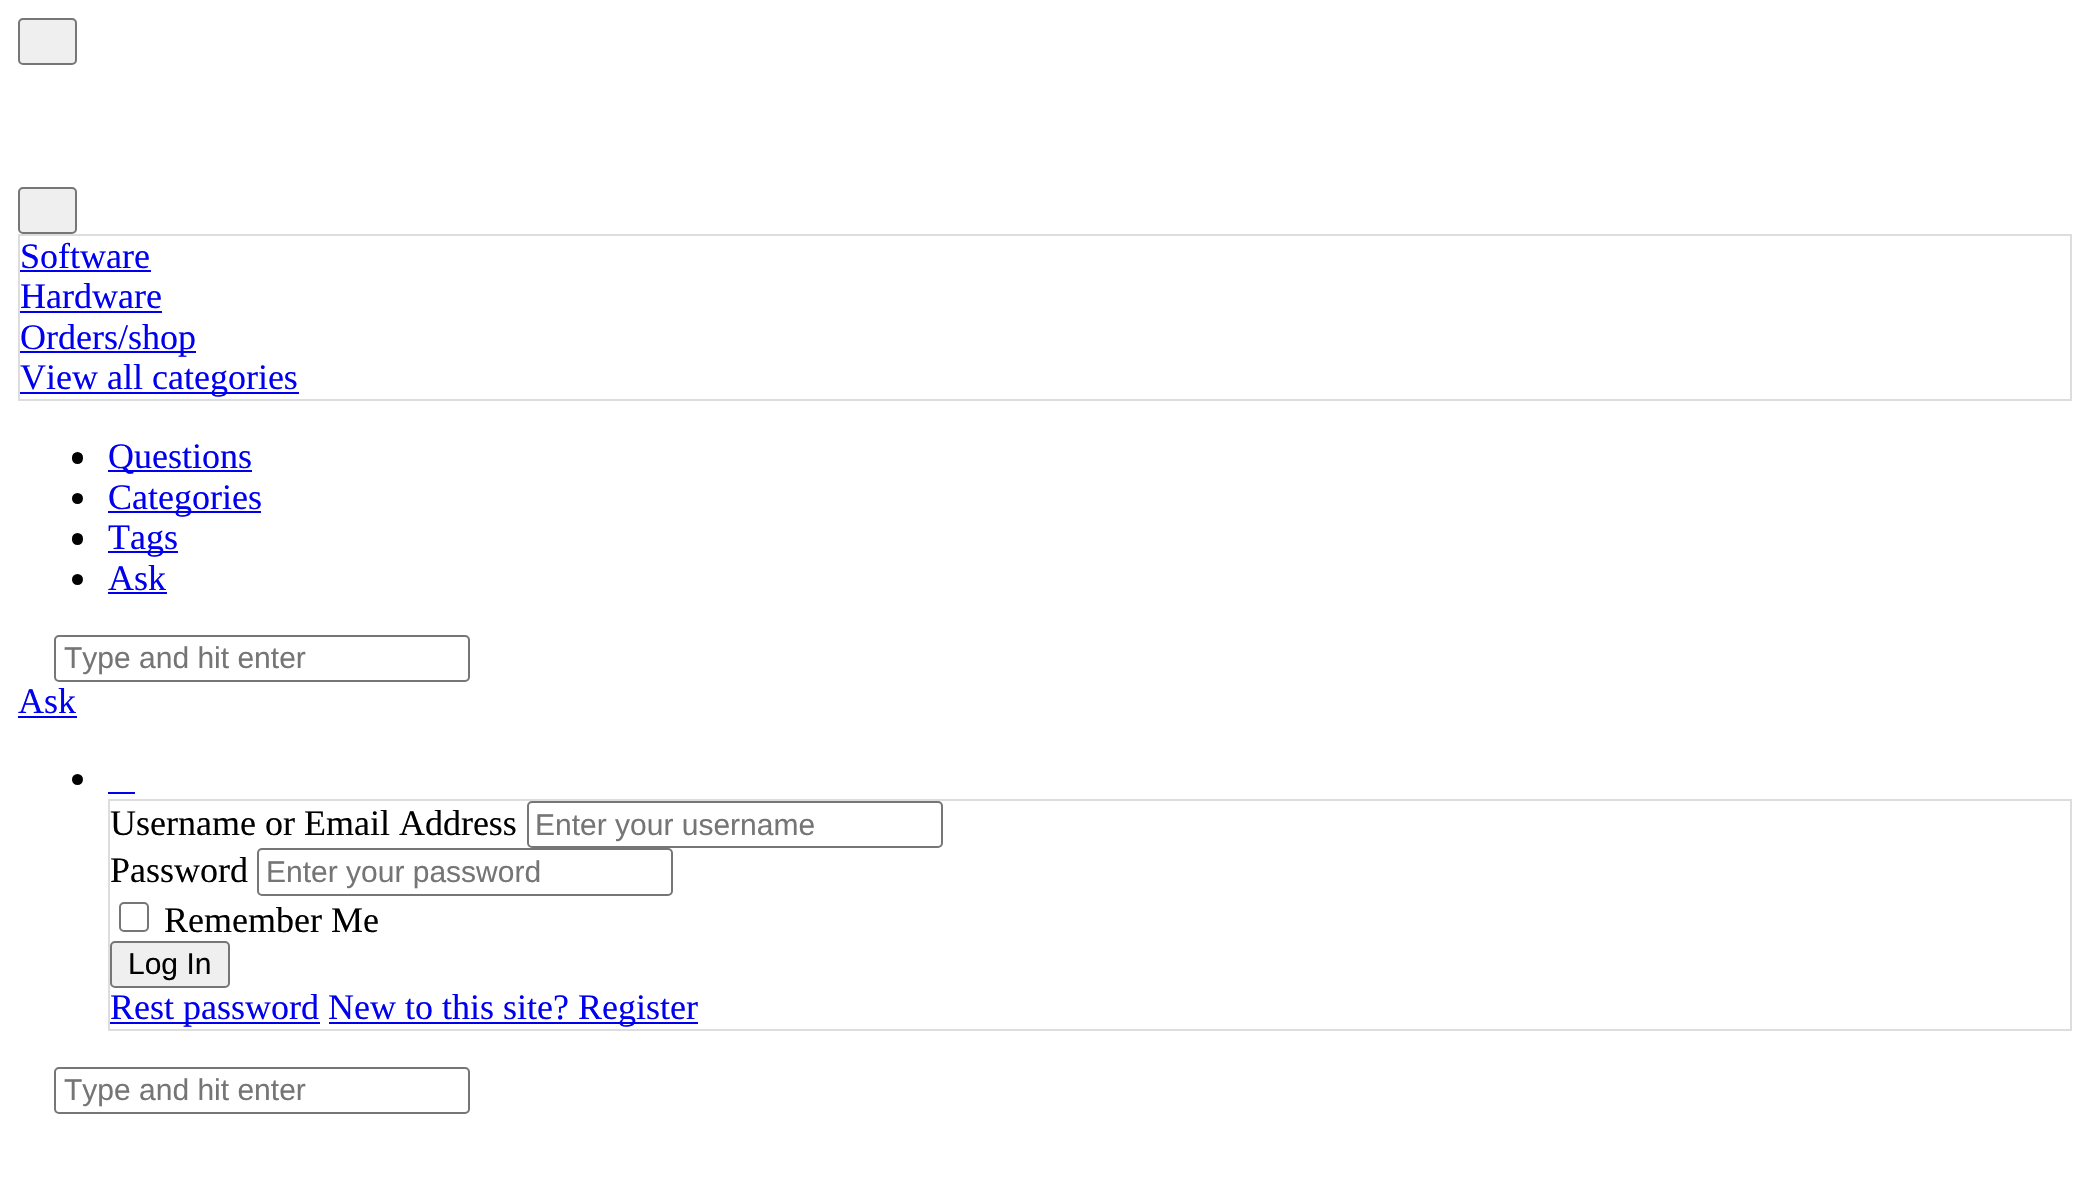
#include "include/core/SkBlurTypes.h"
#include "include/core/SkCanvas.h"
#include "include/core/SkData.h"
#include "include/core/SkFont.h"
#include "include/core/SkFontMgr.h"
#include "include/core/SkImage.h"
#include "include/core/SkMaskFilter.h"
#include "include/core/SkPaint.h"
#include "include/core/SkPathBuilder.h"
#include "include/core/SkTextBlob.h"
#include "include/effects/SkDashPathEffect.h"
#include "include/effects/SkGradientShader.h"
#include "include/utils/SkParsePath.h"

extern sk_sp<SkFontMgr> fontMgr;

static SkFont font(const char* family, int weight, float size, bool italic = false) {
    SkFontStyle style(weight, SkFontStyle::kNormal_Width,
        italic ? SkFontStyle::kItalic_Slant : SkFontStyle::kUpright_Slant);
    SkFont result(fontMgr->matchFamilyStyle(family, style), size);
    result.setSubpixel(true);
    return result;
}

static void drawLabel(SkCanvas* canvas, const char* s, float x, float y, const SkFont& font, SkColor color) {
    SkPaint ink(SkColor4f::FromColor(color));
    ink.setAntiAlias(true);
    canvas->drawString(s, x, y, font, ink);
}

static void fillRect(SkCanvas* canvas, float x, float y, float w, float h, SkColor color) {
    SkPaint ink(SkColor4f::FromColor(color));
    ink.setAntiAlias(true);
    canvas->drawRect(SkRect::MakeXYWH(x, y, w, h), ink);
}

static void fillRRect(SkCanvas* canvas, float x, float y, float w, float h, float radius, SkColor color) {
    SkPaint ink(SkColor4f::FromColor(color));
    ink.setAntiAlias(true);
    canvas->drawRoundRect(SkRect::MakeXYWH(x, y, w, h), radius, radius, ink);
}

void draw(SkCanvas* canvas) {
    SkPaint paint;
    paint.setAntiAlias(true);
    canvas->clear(0xFFFFFFFF);
    paint.setColor(0xFFEFEFEF);
    canvas->drawRoundRect(SkRect::MakeXYWH(19, 19, 57, 45), 4, 4, paint);
    paint.setStroke(true);
    paint.setStrokeWidth(2);
    paint.setColor(0xFF767676);
    canvas->drawRoundRect(SkRect::MakeXYWH(19, 19, 57, 45), 4, 4, paint);
    paint.setStroke(false);
    paint.setColor(0xFFEFEFEF);
    canvas->drawRoundRect(SkRect::MakeXYWH(19, 188, 57, 45), 4, 4, paint);
    paint.setStroke(true);
    paint.setColor(0xFF767676);
    canvas->drawRoundRect(SkRect::MakeXYWH(19, 188, 57, 45), 4, 4, paint);
    paint.setColor(0xFFDDDDDD);
    canvas->drawRect(SkRect::MakeXYWH(19, 235, 2052, 165), paint);
    SkFont font1 = font("Liberation Serif", 400, 36);
    drawLabel(canvas, "Software", 20, 268, font1, 0xFF0000EE);
    fillRect(canvas, 20, 270, 131, 2, 0xFF0000EE);
    drawLabel(canvas, "Hardware", 20, 308, font1, 0xFF0000EE);
    fillRect(canvas, 20, 311, 142, 2, 0xFF0000EE);
    fillRect(canvas, 20, 351, 176, 2, 0xFF0000EE);
    drawLabel(canvas, "Orders/shop", 20, 349, font1, 0xFF0000EE);
    fillRect(canvas, 20, 392, 279, 2, 0xFF0000EE);
    drawLabel(canvas, "View all categories", 20, 389, font1, 0xFF0000EE);
    fillRRect(canvas, 72, 452, 11, 12, 5.5f, 0xFF000000);
    fillRect(canvas, 108, 470, 144, 2, 0xFF0000EE);
    drawLabel(canvas, "Questions", 108, 468, font1, 0xFF0000EE);
    paint.setStroke(false);
    paint.setColor(0xFF000000);
    canvas->drawCircle(77.5f, 498.5f, 5.5f, paint);
    fillRect(canvas, 108, 511, 153, 2, 0xFF0000EE);
    drawLabel(canvas, "Categories", 108, 509, font1, 0xFF0000EE);
    fillRRect(canvas, 72, 533, 11, 12, 5.5f, 0xFF000000);
    fillRect(canvas, 108, 551, 70, 2, 0xFF0000EE);
    drawLabel(canvas, "Tags", 108, 549, font1, 0xFF0000EE);
    canvas->drawCircle(77.5f, 579.5f, 5.5f, paint);
    drawLabel(canvas, "Ask", 108, 590, font1, 0xFF0000EE);
    fillRect(canvas, 108, 592, 59, 2, 0xFF0000EE);
    paint.setStroke(true);
    paint.setColor(0xFF767676);
    canvas->drawRoundRect(SkRect::MakeXYWH(55, 636, 414, 45), 4, 4, paint);
    SkFont font2 = font("Liberation Sans", 400, 30);
    drawLabel(canvas, "Type and hit enter", 64, 668, font2, 0xFF757575);
    drawLabel(canvas, "Ask", 18, 713, font1, 0xFF0000EE);
    fillRect(canvas, 18, 716, 59, 2, 0xFF0000EE);
    paint.setStroke(false);
    paint.setColor(0xFF000000);
    canvas->drawCircle(77.5f, 779.5f, 5.5f, paint);
    fillRect(canvas, 108, 792, 27, 2, 0xFF0000EE);
    paint.setStroke(true);
    paint.setColor(0xFFDDDDDD);
    canvas->drawRect(SkRect::MakeXYWH(109, 800, 1962, 230), paint);
    drawLabel(canvas, "Username or Email Address", 110, 835, font1, 0xFF000000);
    paint.setColor(0xFF767676);
    canvas->drawRoundRect(SkRect::MakeXYWH(528, 802, 414, 45), 4, 4, paint);
    drawLabel(canvas, "Enter your username", 535, 835, font2, 0xFF757575);
    drawLabel(canvas, "Password", 110, 882, font1, 0xFF000000);
    canvas->drawRoundRect(SkRect::MakeXYWH(258, 849, 414, 46), 4, 4, paint);
    drawLabel(canvas, "Enter your password", 266, 882, font2, 0xFF757575);
    canvas->drawRoundRect(SkRect::MakeXYWH(120, 903, 28, 28), 4, 4, paint);
    drawLabel(canvas, "Remember Me", 164, 932, font1, 0xFF000000);
    paint.setStroke(false);
    paint.setColor(0xFFEFEFEF);
    canvas->drawRoundRect(SkRect::MakeXYWH(111, 942, 118, 45), 4, 4, paint);
    paint.setStroke(true);
    paint.setColor(0xFF767676);
    canvas->drawRoundRect(SkRect::MakeXYWH(111, 942, 118, 45), 4, 4, paint);
    drawLabel(canvas, "Log In", 128, 974, font2, 0xFF000000);
    fillRect(canvas, 110, 1022, 210, 2, 0xFF0000EE);
    drawLabel(canvas, "Rest password", 110, 1019, font1, 0xFF0000EE);
    fillRect(canvas, 329, 1022, 369, 2, 0xFF0000EE);
    drawLabel(canvas, "New to this site? Register", 328, 1019, font1, 0xFF0000EE);
    canvas->drawRoundRect(SkRect::MakeXYWH(55, 1068, 414, 45), 4, 4, paint);
    drawLabel(canvas, "Type and hit enter", 64, 1100, font2, 0xFF757575);
}
